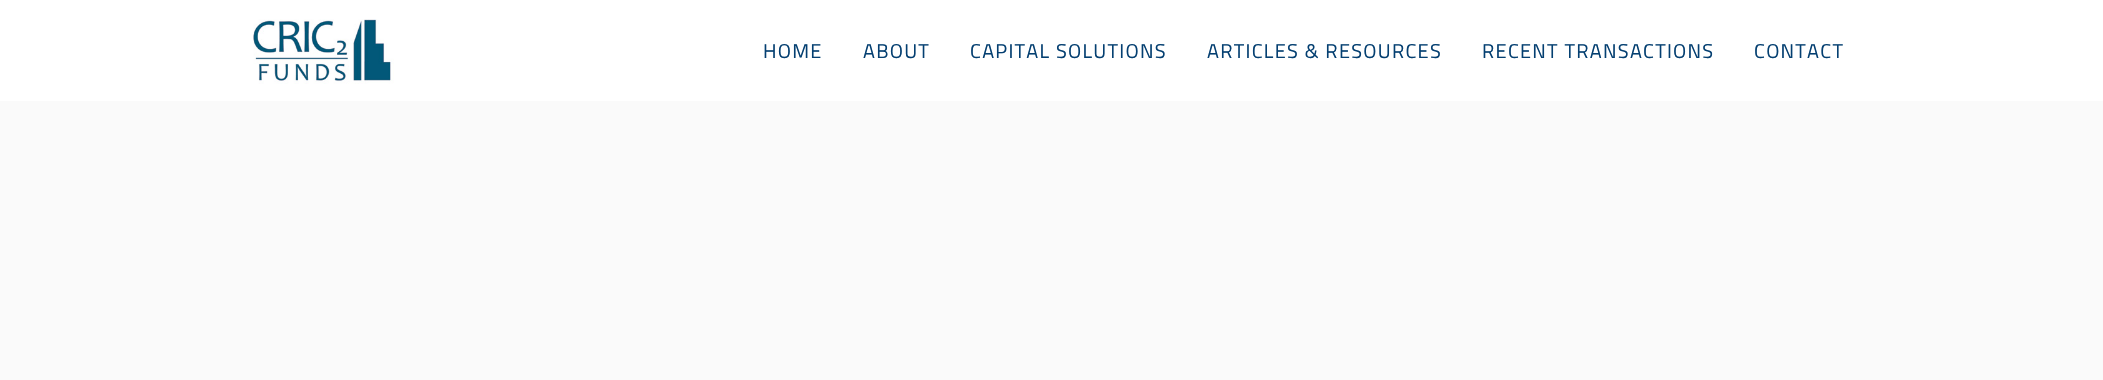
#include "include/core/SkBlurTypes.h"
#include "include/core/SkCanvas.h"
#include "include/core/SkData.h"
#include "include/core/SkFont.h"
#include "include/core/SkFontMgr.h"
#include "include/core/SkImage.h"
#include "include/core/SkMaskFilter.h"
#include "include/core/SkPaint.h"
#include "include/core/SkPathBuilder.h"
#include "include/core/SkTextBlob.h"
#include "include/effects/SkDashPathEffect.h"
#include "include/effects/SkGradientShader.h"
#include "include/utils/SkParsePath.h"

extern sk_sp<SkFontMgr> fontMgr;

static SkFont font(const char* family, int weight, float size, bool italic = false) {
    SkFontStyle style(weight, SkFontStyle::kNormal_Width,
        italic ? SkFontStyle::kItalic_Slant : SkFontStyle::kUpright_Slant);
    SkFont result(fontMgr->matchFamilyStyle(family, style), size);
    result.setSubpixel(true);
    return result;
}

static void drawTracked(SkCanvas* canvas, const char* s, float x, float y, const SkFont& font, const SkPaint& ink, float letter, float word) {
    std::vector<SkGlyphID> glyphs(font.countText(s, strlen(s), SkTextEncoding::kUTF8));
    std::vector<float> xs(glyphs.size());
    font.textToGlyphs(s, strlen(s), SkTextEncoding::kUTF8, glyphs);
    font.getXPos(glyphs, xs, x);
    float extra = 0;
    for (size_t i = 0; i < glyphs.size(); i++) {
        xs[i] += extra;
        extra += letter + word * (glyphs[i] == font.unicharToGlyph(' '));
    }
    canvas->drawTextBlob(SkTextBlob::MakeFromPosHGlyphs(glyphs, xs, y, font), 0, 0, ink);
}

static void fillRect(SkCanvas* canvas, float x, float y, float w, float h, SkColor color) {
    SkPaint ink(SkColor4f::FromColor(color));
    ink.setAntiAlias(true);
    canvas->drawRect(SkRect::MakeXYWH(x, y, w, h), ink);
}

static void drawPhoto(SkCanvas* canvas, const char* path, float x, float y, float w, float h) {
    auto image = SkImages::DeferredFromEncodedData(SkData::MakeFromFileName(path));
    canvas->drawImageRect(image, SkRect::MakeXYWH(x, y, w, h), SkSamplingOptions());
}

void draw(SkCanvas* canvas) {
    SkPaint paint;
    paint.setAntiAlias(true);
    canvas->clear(0xFFFAFAFA);
    fillRect(canvas, 0, 0, 2103, 101, 0xFFFFFFFF);
    drawPhoto(canvas, "assets/img1.png", 253, 19, 141, 65);
    SkFont font1 = font("Titillium Web", 400, 20);
    paint.setColor(0xFF043F71);
    drawTracked(canvas, "HOME", 763, 58, font1, paint, 1.25f, 0);
    drawTracked(canvas, "ABOUT", 863, 58, font1, paint, 1.25f, 0);
    drawTracked(canvas, "CAPITAL SOLUTIONS", 970, 58, font1, paint, 1.25f, 0);
    drawTracked(canvas, "ARTICLES & RESOURCES", 1207, 58, font1, paint, 1.25f, 0);
    drawTracked(canvas, "RECENT TRANSACTIONS", 1482, 58, font1, paint, 1.25f, 0);
    drawTracked(canvas, "CONTACT", 1754, 58, font1, paint, 1.25f, 0);
}
